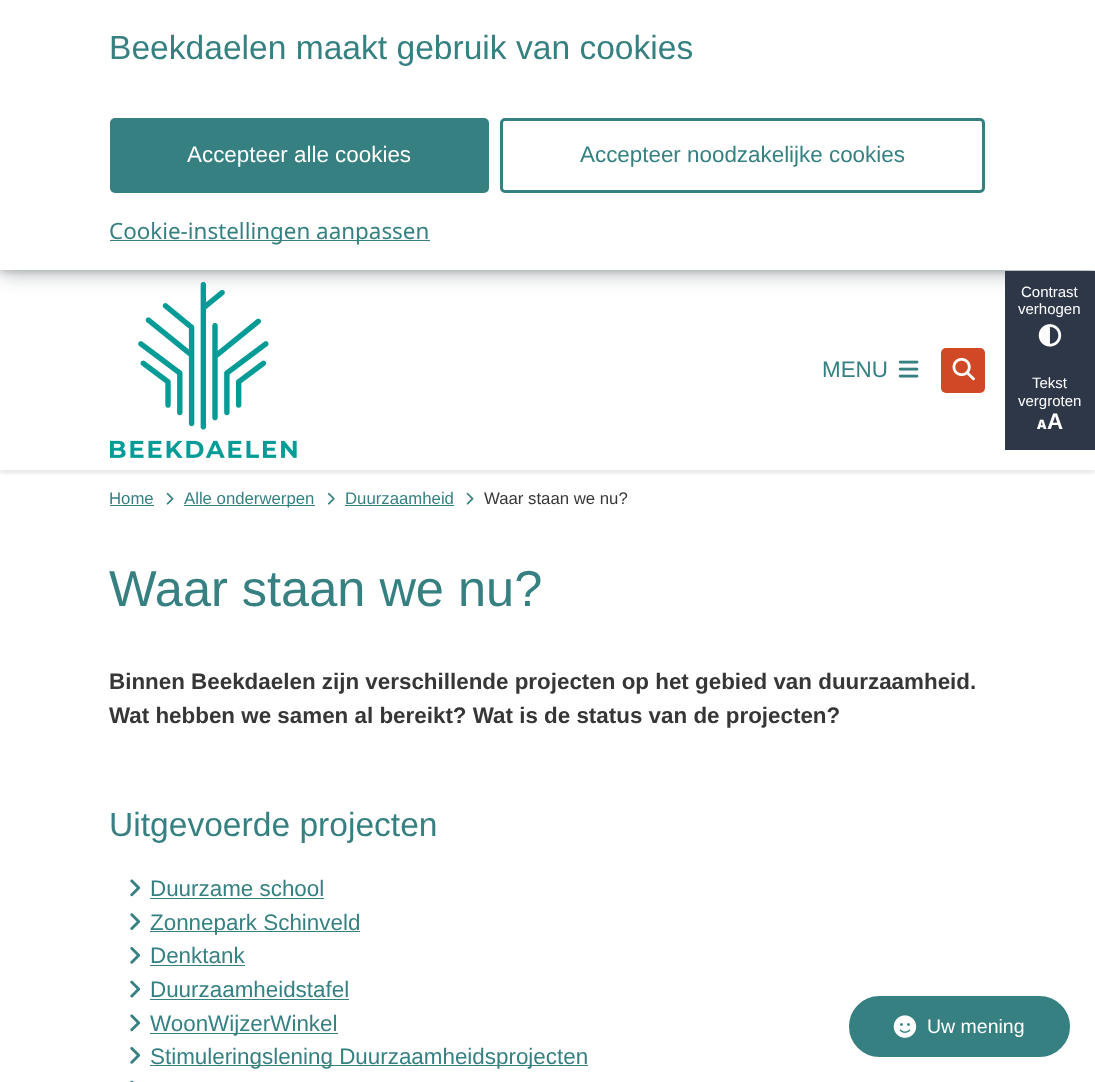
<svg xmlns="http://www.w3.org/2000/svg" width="1095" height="1082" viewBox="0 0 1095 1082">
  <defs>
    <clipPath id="clip1"><rect x="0" y="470" width="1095" height="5"/></clipPath>
  </defs>
  <rect width="100%" height="100%" fill="rgb(255,255,255)"/>
  <rect x="0" y="3" width="1095" height="270" fill="rgba(14,30,37,0.32)" filter="blur(10px)"/>
  <rect x="0" y="3" width="1095" height="270" fill="rgba(14,30,37,0.12)" filter="blur(2.5px)"/>
  <g clip-path="url(#clip1)">
    <rect x="0" y="273" width="1095" height="200" fill="rgba(0,0,0,0.1)" filter="blur(2.5px)"/>
  </g>
  <rect x="0" y="0" width="1095" height="270" fill="rgb(255,255,255)"/>
  <text x="109" y="59" font-family="Liberation Sans" font-size="33.6" fill="rgb(54,128,129)">Beekdaelen maakt gebruik van cookies</text>
  <rect x="110" y="118" width="379" height="75" rx="5" fill="rgb(54,128,129)"/>
  <text x="187" y="162" font-family="Liberation Sans" font-size="22.4" fill="rgb(255,255,255)">Accepteer alle cookies</text>
  <rect x="501.5" y="119.5" width="482" height="72" rx="3.5" fill="none" stroke="rgb(54,128,129)" stroke-width="3"/>
  <text x="580" y="162" font-family="Liberation Sans" font-size="22.4" fill="rgb(54,128,129)">Accepteer noodzakelijke cookies</text>
  <rect x="110" y="240" width="320" height="1" fill="rgb(54,128,129)"/>
  <text x="109" y="239" font-family="Noto Sans" font-size="22.4" fill="rgb(54,128,129)">Cookie-instellingen aanpassen</text>
  <image x="110" y="281" width="187" height="177" href="pic1.png"/>
  <text x="822" y="377" font-family="Liberation Sans" font-size="22.4" fill="rgb(54,128,129)">MENU</text>
  <image x="898" y="360" width="21" height="18" href="pic2.png"/>
  <rect x="941" y="348" width="44" height="45" rx="5" fill="rgb(209,72,38)"/>
  <image x="952" y="357" width="23" height="24" href="pic3.png"/>
  <text x="109" y="504" font-family="Liberation Sans" font-size="16.75" fill="rgb(54,128,129)">Home</text>
  <rect x="110" y="505" width="44" height="1" fill="rgb(54,128,129)"/>
  <image x="166" y="492" width="8" height="13" href="pic4.png"/>
  <rect x="184" y="505" width="131" height="1" fill="rgb(54,128,129)"/>
  <text x="184" y="504" font-family="Liberation Sans" font-size="16.75" fill="rgb(54,128,129)">Alle onderwerpen</text>
  <image x="328" y="492" width="7" height="13" href="pic5.png"/>
  <text x="345" y="504" font-family="Liberation Sans" font-size="16.75" fill="rgb(54,128,129)">Duurzaamheid</text>
  <rect x="345" y="505" width="109" height="1" fill="rgb(54,128,129)"/>
  <image x="466" y="492" width="8" height="13" href="pic4.png"/>
  <text x="484" y="504" font-family="Liberation Sans" font-size="16.75" fill="rgb(54,54,54)">Waar staan we nu?</text>
  <text x="109" y="606" font-family="Liberation Sans" font-size="50.5" fill="rgb(54,128,129)">Waar staan we nu?</text>
  <g font-family="Liberation Sans" font-size="22.4" font-weight="bold" fill="rgb(54,54,54)">
    <text>
      <tspan x="109" y="689">Binnen Beekdaelen zijn verschillende projecten op het gebied van duurzaamheid.</tspan>
      <tspan x="109" y="723">Wat hebben we samen al bereikt? Wat is de status van de projecten?</tspan>
    </text>
  </g>
  <text x="109" y="836" font-family="Liberation Sans" font-size="33.6" fill="rgb(54,128,129)">Uitgevoerde projecten</text>
  <image x="130" y="879" width="11" height="18" href="pic6.png"/>
  <text x="150" y="896" font-family="Liberation Sans" font-size="22.4" fill="rgb(54,128,129)">Duurzame school</text>
  <rect x="150" y="898" width="174" height="1" fill="rgb(54,128,129)"/>
  <image x="130" y="913" width="11" height="17" href="pic7.png"/>
  <rect x="150" y="931" width="210" height="1" fill="rgb(54,128,129)"/>
  <text x="150" y="930" font-family="Liberation Sans" font-size="22.4" fill="rgb(54,128,129)">Zonnepark Schinveld</text>
  <image x="130" y="947" width="11" height="17" href="pic8.png"/>
  <text x="150" y="963" font-family="Liberation Sans" font-size="22.4" fill="rgb(54,128,129)">Denktank</text>
  <rect x="150" y="965" width="95" height="1" fill="rgb(54,128,129)"/>
  <image x="130" y="980" width="11" height="18" href="pic9.png"/>
  <text x="150" y="997" font-family="Liberation Sans" font-size="22.4" fill="rgb(54,128,129)">Duurzaamheidstafel</text>
  <rect x="150" y="999" width="199" height="1" fill="rgb(54,128,129)"/>
  <image x="130" y="1014" width="11" height="18" href="pic6.png"/>
  <rect x="150" y="1033" width="188" height="1" fill="rgb(54,128,129)"/>
  <text x="150" y="1031" font-family="Liberation Sans" font-size="22.4" fill="rgb(54,128,129)">WoonWijzerWinkel</text>
  <image x="130" y="1047" width="11" height="17" href="pic8.png"/>
  <rect x="150" y="1065" width="438" height="1" fill="rgb(54,128,129)"/>
  <text x="150" y="1064" font-family="Liberation Sans" font-size="22.4" fill="rgb(54,128,129)">Stimuleringslening Duurzaamheidsprojecten</text>
  <image x="130" y="1080" width="4" height="2" href="pic10.png"/>
  <rect x="847.5" y="994.5" width="224" height="64" rx="32" fill="rgb(54,128,129)" stroke="rgb(255,255,255)" stroke-width="3"/>
  <image x="893" y="1015" width="24" height="23" href="pic11.png"/>
  <text x="927" y="1033" font-family="Liberation Sans" font-size="19.5" fill="rgb(255,255,255)">Uw mening</text>
  <rect x="1005" y="271" width="90" height="179" fill="rgb(45,55,72)"/>
  <g font-family="Liberation Sans" font-size="15" fill="rgb(255,255,255)">
    <text x="1021" y="297">Contrast</text>
    <text x="1018" y="314">verhogen</text>
  </g>
  <image x="1038" y="324" width="24" height="23" href="pic12.png"/>
  <g font-family="Liberation Sans" font-size="15" fill="rgb(255,255,255)">
    <text x="1032" y="388">Tekst</text>
    <text x="1018" y="406">vergroten</text>
  </g>
  <text x="1037" y="429" font-family="Noto Sans" font-size="13" font-weight="900" fill="rgb(255,255,255)">A</text>
  <text x="1047" y="429" font-family="Liberation Sans" font-size="22.4" font-weight="bold" fill="rgb(255,255,255)">A</text>
</svg>
